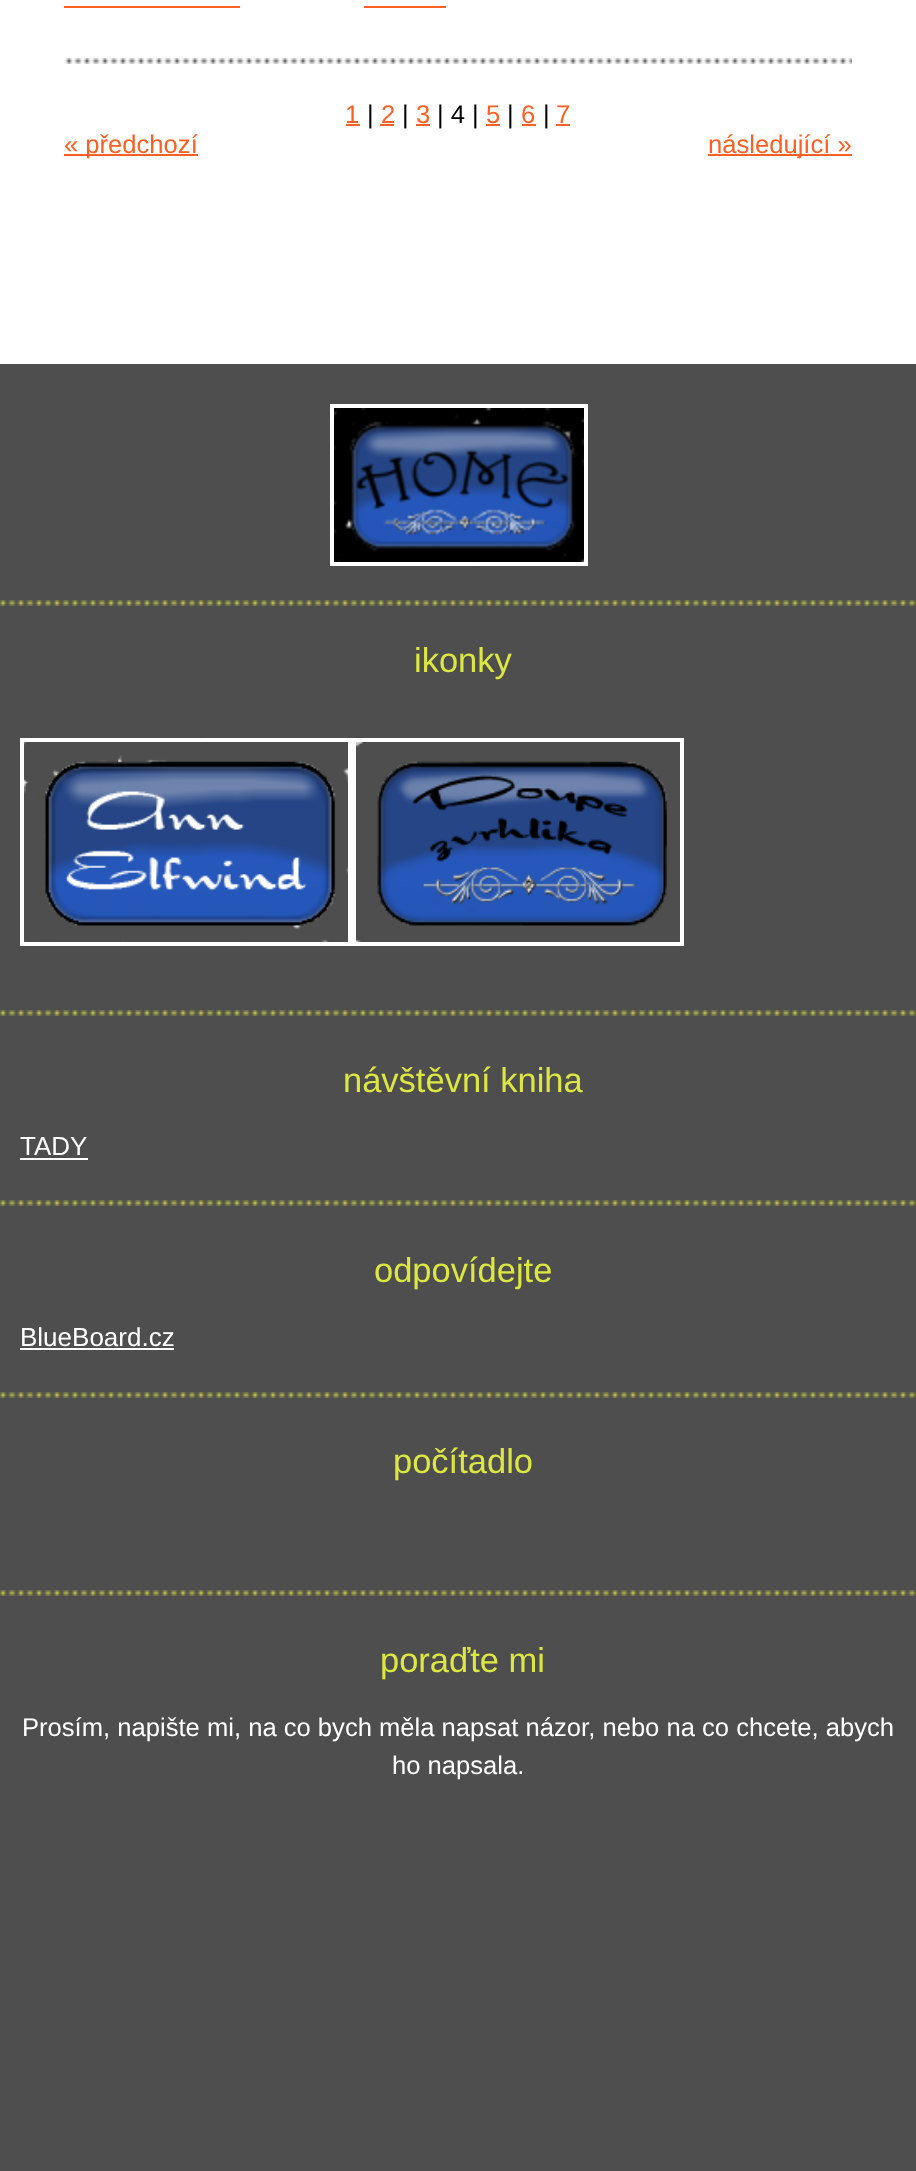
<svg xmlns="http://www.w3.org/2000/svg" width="916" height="2171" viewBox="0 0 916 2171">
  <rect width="100%" height="100%" fill="rgb(78,78,78)"/>
  <rect x="0" y="0" width="916" height="364" fill="rgb(255,255,255)"/>
  <image x="64" y="58" width="788" height="6" href="pic1.png"/>
  <rect x="64" y="6" width="176" height="2" fill="rgb(252,96,34)"/>
  <rect x="364" y="6" width="82" height="2" fill="rgb(252,96,34)"/>
  <text x="345" y="123" font-family="Liberation Sans" font-size="25.6" fill="rgb(252,96,34)">1</text>
  <rect x="346" y="124" width="14" height="2" fill="rgb(252,96,34)"/>
  <text x="367" y="123" font-family="Liberation Sans" font-size="25.6" fill="rgb(0,0,0)">|</text>
  <text x="381" y="123" font-family="Liberation Sans" font-size="25.6" fill="rgb(252,96,34)">2</text>
  <rect x="380" y="124" width="14" height="2" fill="rgb(252,96,34)"/>
  <text x="402" y="123" font-family="Liberation Sans" font-size="25.6" fill="rgb(0,0,0)">|</text>
  <text x="416" y="123" font-family="Liberation Sans" font-size="25.6" fill="rgb(252,96,34)">3</text>
  <rect x="416" y="124" width="14" height="2" fill="rgb(252,96,34)"/>
  <text x="437" y="123" font-family="Liberation Sans" font-size="25.6" fill="rgb(0,0,0)">| 4 |</text>
  <text x="486" y="123" font-family="Liberation Sans" font-size="25.6" fill="rgb(252,96,34)">5</text>
  <rect x="486" y="124" width="14" height="2" fill="rgb(252,96,34)"/>
  <text x="507" y="123" font-family="Liberation Sans" font-size="25.6" fill="rgb(0,0,0)">|</text>
  <text x="521" y="123" font-family="Liberation Sans" font-size="25.6" fill="rgb(252,96,34)">6</text>
  <rect x="522" y="124" width="14" height="2" fill="rgb(252,96,34)"/>
  <text x="543" y="123" font-family="Liberation Sans" font-size="25.6" fill="rgb(0,0,0)">|</text>
  <text x="556" y="123" font-family="Liberation Sans" font-size="25.6" fill="rgb(252,96,34)">7</text>
  <rect x="556" y="124" width="14" height="2" fill="rgb(252,96,34)"/>
  <rect x="64" y="154" width="134" height="2" fill="rgb(252,96,34)"/>
  <text x="64" y="153" font-family="Liberation Sans" font-size="25.6" fill="rgb(252,96,34)">« předchozí</text>
  <rect x="708" y="154" width="144" height="2" fill="rgb(252,96,34)"/>
  <text x="708" y="153" font-family="Liberation Sans" font-size="25.6" fill="rgb(252,96,34)">následující »</text>
  <image x="0" y="600" width="916" height="6" href="pic2.png"/>
  <rect x="332" y="406" width="254" height="158" fill="none" stroke="rgb(255,255,255)" stroke-width="4"/>
  <image x="334" y="408" width="250" height="154" href="pic3.png"/>
  <image x="0" y="1010" width="916" height="6" href="pic2.png"/>
  <text x="414" y="672" font-family="Liberation Sans" font-size="34.5" fill="rgb(221,231,66)">ikonky</text>
  <rect x="22" y="740" width="328" height="204" fill="none" stroke="rgb(255,255,255)" stroke-width="4"/>
  <image x="24" y="742" width="324" height="200" href="pic4.png"/>
  <rect x="354" y="740" width="328" height="204" fill="none" stroke="rgb(255,255,255)" stroke-width="4"/>
  <image x="356" y="742" width="312" height="200" href="pic5.png"/>
  <image x="0" y="1200" width="916" height="6" href="pic2.png"/>
  <text x="343" y="1092" font-family="Liberation Sans" font-size="34.5" fill="rgb(221,231,66)">návštěvní kniha</text>
  <text x="20" y="1155" font-family="Liberation Sans" font-size="26" fill="rgb(255,255,255)">TADY</text>
  <rect x="20" y="1158" width="68" height="2" fill="rgb(255,255,255)"/>
  <image x="0" y="1392" width="916" height="6" href="pic2.png"/>
  <text x="374" y="1282" font-family="Liberation Sans" font-size="34.5" fill="rgb(221,231,66)">odpovídejte</text>
  <text x="20" y="1346" font-family="Liberation Sans" font-size="26" fill="rgb(255,255,255)">BlueBoard.cz</text>
  <rect x="20" y="1348" width="154" height="2" fill="rgb(255,255,255)"/>
  <image x="0" y="1590" width="916" height="6" href="pic2.png"/>
  <g font-family="Liberation Sans" font-size="34.5" fill="rgb(221,231,66)">
    <text x="393" y="1473">počítadlo</text>
    <text x="380" y="1672">poraďte mi</text>
  </g>
  <g font-family="Liberation Sans" font-size="25.6" fill="rgb(255,255,255)">
    <text x="22" y="1736">Prosím, napište mi, na co bych měla napsat názor, nebo na co chcete, abych</text>
    <text x="392" y="1774">ho napsala.</text>
  </g>
</svg>
